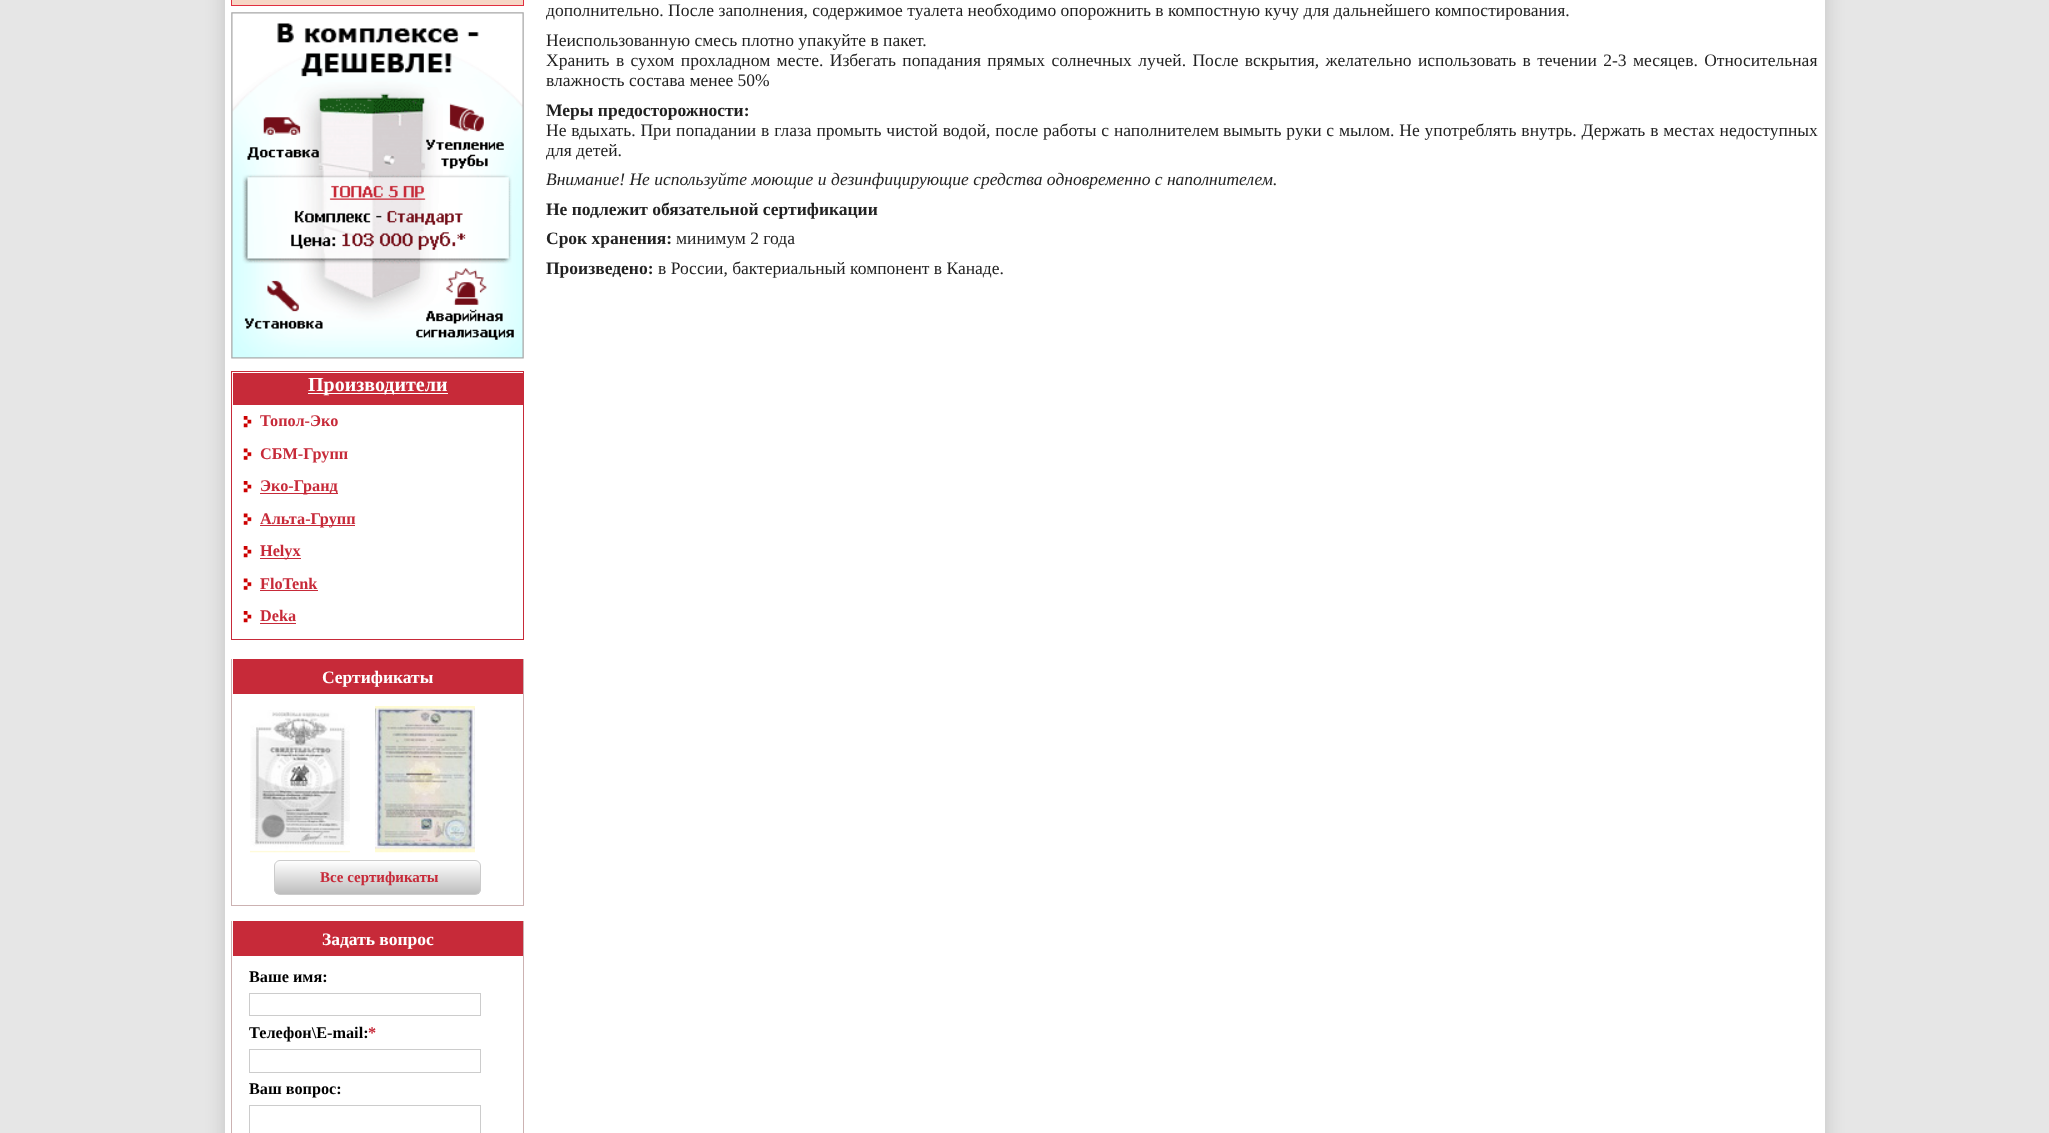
<svg xmlns="http://www.w3.org/2000/svg" width="2049" height="1133" viewBox="0 0 2049 1133">
  <defs>
    <clipPath id="clip1"><rect x="274" y="860" width="207" height="35" rx="6"/></clipPath>
    <linearGradient id="g1" gradientUnits="userSpaceOnUse" x1="275" y1="861" x2="275" y2="894"><stop offset="0" stop-color="rgb(255,255,255)"/><stop offset="1" stop-color="rgb(189,189,189)"/></linearGradient>
  </defs>
  <rect width="100%" height="100%" fill="rgb(230,230,230)"/>
  <rect x="225" y="-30" width="1600" height="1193" fill="rgba(0,0,0,0.15)" filter="blur(10px)"/>
  <rect x="225" y="0" width="1600" height="1133" fill="rgb(255,255,255)"/>
  <g font-family="Liberation Serif" font-size="17.5" fill="rgb(34,34,34)">
    <text>
      <tspan x="546" y="16">дополнительно. После заполнения, содержимое туалета необходимо опорожнить в компостную кучу для дальнейшего компостирования.</tspan>
      <tspan x="546" y="46">Неиспользованную смесь плотно упакуйте в пакет.</tspan>
      <tspan x="546" y="66" word-spacing="2">Хранить в сухом прохладном месте. Избегать попадания прямых солнечных лучей. После вскрытия, желательно использовать в течении 2-3 месяцев. Относительная</tspan>
      <tspan x="546" y="86">влажность состава менее 50%</tspan>
    </text>
  </g>
  <text x="546" y="116" font-family="Liberation Serif" font-size="17.5" font-weight="bold" fill="rgb(34,34,34)">Меры предосторожности:</text>
  <g font-family="Liberation Serif" font-size="17.5" fill="rgb(34,34,34)">
    <text x="546" y="136" word-spacing="0.5">Не вдыхать. При попадании в глаза промыть чистой водой, после работы с наполнителем</text>
    <text x="1223" y="136" word-spacing="0.5">вымыть руки с мылом. Не употреблять внутрь. Держать в местах недоступных</text>
    <text x="546" y="156">для детей.</text>
  </g>
  <text x="546" y="185" font-family="Liberation Serif" font-size="17.5" font-style="italic" fill="rgb(34,34,34)">Внимание! Не используйте моющие и дезинфицирующие средства одновременно с наполнителем.</text>
  <g font-family="Liberation Serif" font-size="17.5" font-weight="bold" fill="rgb(34,34,34)">
    <text>
      <tspan x="546" y="215">Не подлежит обязательной сертификации</tspan>
      <tspan x="546" y="244">Срок хранения:</tspan>
    </text>
  </g>
  <text x="676" y="244" font-family="Liberation Serif" font-size="17.5" fill="rgb(34,34,34)">минимум 2 года</text>
  <text x="546" y="274" font-family="Liberation Serif" font-size="17.5" font-weight="bold" fill="rgb(34,34,34)">Произведено:</text>
  <text x="658" y="274" font-family="Liberation Serif" font-size="17.5" fill="rgb(34,34,34)">в России, бактериальный компонент в Канаде.</text>
  <rect x="231.5" y="-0.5" width="292" height="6" fill="rgb(247,214,197)" stroke="rgb(225,47,64)"/>
  <image x="231" y="12" width="293" height="347" href="pic1.png"/>
  <rect x="231.5" y="371.5" width="292" height="268" fill="none" stroke="rgb(199,42,57)"/>
  <rect x="233" y="373" width="290" height="32" fill="rgb(199,42,57)"/>
  <rect x="308" y="393" width="140" height="1" fill="rgb(255,255,255)"/>
  <text x="308" y="391" font-family="Liberation Serif" font-size="20" font-weight="bold" fill="rgb(255,255,255)">Производители</text>
  <image x="243" y="416" width="9" height="12" href="pic2.png"/>
  <text x="260" y="426" font-family="Liberation Serif" font-size="16.25" font-weight="bold" fill="rgb(199,42,57)">Топол-Эко</text>
  <image x="243" y="448" width="9" height="12" href="pic3.png"/>
  <text x="260" y="459" font-family="Liberation Serif" font-size="16.25" font-weight="bold" fill="rgb(199,42,57)">СБМ-Групп</text>
  <image x="243" y="481" width="9" height="12" href="pic2.png"/>
  <rect x="260" y="493" width="78" height="1" fill="rgb(199,42,57)"/>
  <text x="260" y="491" font-family="Liberation Serif" font-size="16.25" font-weight="bold" fill="rgb(199,42,57)">Эко-Гранд</text>
  <image x="243" y="513" width="9" height="12" href="pic3.png"/>
  <rect x="260" y="525" width="95" height="1" fill="rgb(199,42,57)"/>
  <text x="260" y="524" font-family="Liberation Serif" font-size="16.25" font-weight="bold" fill="rgb(199,42,57)">Альта-Групп</text>
  <image x="243" y="546" width="9" height="12" href="pic2.png"/>
  <rect x="260" y="558" width="41" height="1" fill="rgb(199,42,57)"/>
  <text x="260" y="556" font-family="Liberation Serif" font-size="16.25" font-weight="bold" fill="rgb(199,42,57)">Helyx</text>
  <image x="243" y="578" width="9" height="12" href="pic3.png"/>
  <text x="260" y="589" font-family="Liberation Serif" font-size="16.25" font-weight="bold" fill="rgb(199,42,57)">FloTenk</text>
  <rect x="260" y="590" width="58" height="1" fill="rgb(199,42,57)"/>
  <image x="243" y="611" width="9" height="12" href="pic2.png"/>
  <text x="260" y="621" font-family="Liberation Serif" font-size="16.25" font-weight="bold" fill="rgb(199,42,57)">Deka</text>
  <rect x="260" y="623" width="36" height="1" fill="rgb(199,42,57)"/>
  <rect x="523" y="659" width="1" height="247" fill="rgb(204,178,178)"/>
  <rect x="231" y="905" width="293" height="1" fill="rgb(204,178,178)"/>
  <rect x="231" y="659" width="1" height="247" fill="rgb(204,178,178)"/>
  <rect x="233" y="659" width="290" height="35" fill="rgb(199,42,57)"/>
  <text x="322" y="683" font-family="Liberation Serif" font-size="17.5" font-weight="bold" fill="rgb(255,255,255)">Сертификаты</text>
  <image x="250" y="710" width="100" height="143" href="pic4.png"/>
  <image x="375" y="706" width="100" height="147" href="pic5.png"/>
  <g clip-path="url(#clip1)">
    <rect x="274" y="861" width="207" height="33" fill="url(#g1)"/>
  </g>
  <rect x="274.5" y="860.5" width="206" height="34" rx="5.5" fill="none" stroke="rgb(204,204,204)"/>
  <text x="320" y="882" font-family="Liberation Serif" font-size="15" font-weight="bold" fill="rgb(199,42,57)">Все сертификаты</text>
  <rect x="523" y="921" width="1" height="212" fill="rgb(204,178,178)"/>
  <rect x="231" y="921" width="1" height="212" fill="rgb(204,178,178)"/>
  <rect x="233" y="921" width="290" height="35" fill="rgb(199,42,57)"/>
  <text x="322" y="945" font-family="Liberation Serif" font-size="17.5" font-weight="bold" fill="rgb(255,255,255)">Задать вопрос</text>
  <text x="249" y="982" font-family="Liberation Serif" font-size="16.25" font-weight="bold" fill="rgb(0,0,0)">Ваше имя:</text>
  <rect x="249.5" y="993.5" width="231" height="22" fill="none" stroke="rgb(204,204,204)"/>
  <text x="249" y="1038" font-family="Liberation Serif" font-size="16.25" font-weight="bold" fill="rgb(0,0,0)">Телефон\E-mail:</text>
  <text x="368" y="1038" font-family="Liberation Serif" font-size="16.25" font-weight="bold" fill="rgb(199,42,57)">*</text>
  <rect x="249.5" y="1049.5" width="231" height="23" fill="none" stroke="rgb(204,204,204)"/>
  <text x="249" y="1094" font-family="Liberation Serif" font-size="16.25" font-weight="bold" fill="rgb(0,0,0)">Ваш вопрос:</text>
  <rect x="249.5" y="1105.5" width="231" height="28" fill="none" stroke="rgb(204,204,204)"/>
</svg>
